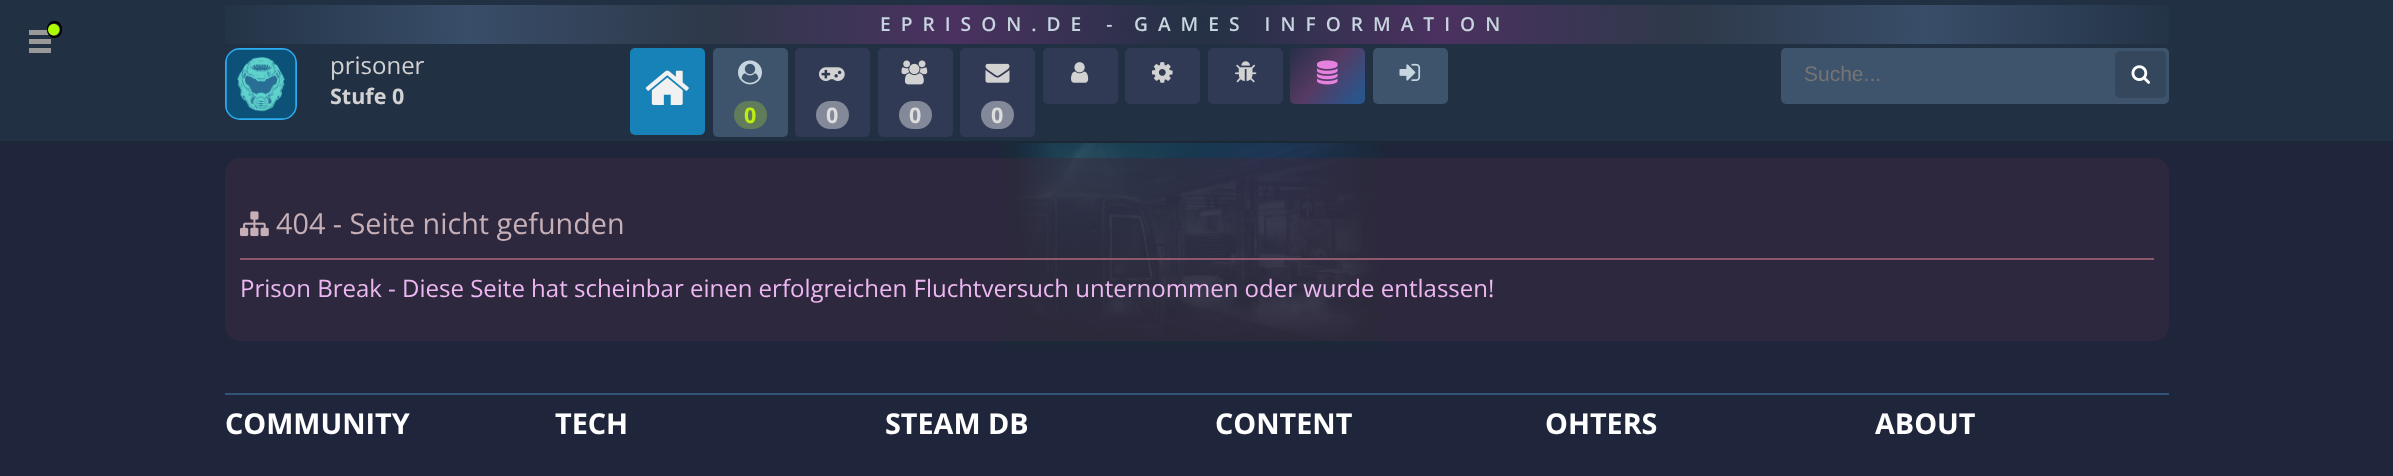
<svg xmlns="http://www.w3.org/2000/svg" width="2393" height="476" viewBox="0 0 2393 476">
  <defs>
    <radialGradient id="g1" gradientUnits="userSpaceOnUse" cx="0" cy="0" r="1" gradientTransform="matrix(972 0 0 778 1197 24)"><stop offset="0" stop-color="rgb(35,49,68)"/><stop offset="0.25" stop-color="rgb(75,49,96)"/><stop offset="0.5" stop-color="rgb(46,57,74)"/><stop offset="0.75" stop-color="rgb(56,77,104)"/><stop offset="1" stop-color="rgb(36,52,71)"/></radialGradient>
    <linearGradient id="g2" gradientUnits="userSpaceOnUse" x1="1292" y1="46" x2="1363" y2="106"><stop offset="0" stop-color="rgb(38,47,73)"/><stop offset="0.45" stop-color="rgb(86,58,98)"/><stop offset="0.9" stop-color="rgb(43,85,138)"/></linearGradient>
  </defs>
  <rect width="100%" height="100%" fill="rgb(31,38,60)"/>
  <rect x="0" y="0" width="2393" height="141" fill="rgba(36,52,71,0.7)"/>
  <rect x="29" y="30" width="22" height="5" fill="rgb(153,153,153)"/>
  <rect x="29" y="39" width="22" height="5" fill="rgb(153,153,153)"/>
  <rect x="29" y="48" width="22" height="5" fill="rgb(153,153,153)"/>
  <rect x="48" y="22" width="13" height="15" rx="6.5" fill="none" stroke="rgb(0,0,0)" stroke-width="2"/>
  <image x="48" y="23" width="12" height="13" href="pic1.png"/>
  <rect x="0" y="141" width="2393" height="2" fill="rgb(27,40,54)"/>
  <rect x="225" y="5" width="1944" height="39" fill="url(#g1)"/>
  <text x="880" y="31" font-family="Open Sans" font-size="19.2" font-weight="600" letter-spacing="10" fill="rgb(199,213,224)">EPRISON.DE -</text>
  <text x="1134" y="31" font-family="Open Sans" font-size="19.2" font-weight="600" letter-spacing="10" fill="rgb(199,213,224)">GAMES INFORMATION</text>
  <rect x="226" y="49" width="70" height="70" rx="14" fill="none" stroke="rgb(43,172,240)" stroke-width="2"/>
  <image x="226" y="49" width="70" height="70" href="pic2.png"/>
  <text x="330" y="74" font-family="Open Sans" font-size="24" fill="rgb(210,210,210)">prisoner</text>
  <text x="330" y="104" font-family="Open Sans" font-size="21.5" font-weight="bold" fill="rgb(210,210,210)">Stufe 0</text>
  <rect x="630" y="48" width="75" height="87" rx="5" fill="rgb(22,130,183)"/>
  <image x="645" y="70" width="44" height="35" href="pic3.png"/>
  <rect x="1043" y="48" width="75" height="56" rx="5" fill="rgb(49,58,85)"/>
  <image x="1071" y="62" width="18" height="21" href="pic4.png"/>
  <rect x="1125" y="48" width="75" height="56" rx="5" fill="rgb(49,58,85)"/>
  <image x="1152" y="62" width="21" height="21" href="pic5.png"/>
  <rect x="1208" y="48" width="75" height="56" rx="5" fill="rgb(49,58,85)"/>
  <image x="1235" y="61" width="22" height="22" href="pic6.png"/>
  <rect x="1290" y="48" width="75" height="56" rx="5" fill="url(#g2)"/>
  <image x="1317" y="60" width="21" height="25" href="pic7.png"/>
  <rect x="1373" y="48" width="75" height="56" rx="5" fill="rgb(62,83,108)"/>
  <image x="1399" y="63" width="22" height="18" href="pic8.png"/>
  <rect x="1781" y="48" width="388" height="56" rx="5" fill="rgb(62,83,108)"/>
  <text x="1804" y="81" font-family="Liberation Sans" font-size="21" fill="rgb(117,117,117)">Suche...</text>
  <rect x="2116" y="52" width="49" height="45" rx="4" fill="rgb(53,71,92)" stroke="rgb(53,71,92)" stroke-width="2"/>
  <image x="2131" y="65" width="20" height="19" href="pic9.png"/>
  <rect x="713" y="48" width="75" height="89" rx="5" fill="rgb(62,83,108)"/>
  <image x="738" y="60" width="24" height="25" href="pic10.png"/>
  <rect x="734" y="101" width="33" height="28" rx="14" fill="rgb(97,124,91)"/>
  <text x="744" y="123" font-family="Open Sans" font-size="21.5" font-weight="bold" fill="rgb(190,238,17)">0</text>
  <rect x="795" y="48" width="75" height="89" rx="5" fill="rgb(49,58,85)"/>
  <image x="819" y="67" width="26" height="14" href="pic11.png"/>
  <rect x="816" y="101" width="33" height="28" rx="14" fill="rgb(131,137,153)"/>
  <text x="826" y="123" font-family="Open Sans" font-size="21.5" font-weight="bold" fill="rgb(221,221,221)">0</text>
  <rect x="878" y="48" width="75" height="89" rx="5" fill="rgb(49,58,85)"/>
  <image x="901" y="60" width="27" height="25" href="pic12.png"/>
  <rect x="899" y="101" width="33" height="28" rx="14" fill="rgb(131,137,153)"/>
  <text x="909" y="123" font-family="Open Sans" font-size="21.5" font-weight="bold" fill="rgb(221,221,221)">0</text>
  <rect x="960" y="48" width="75" height="89" rx="5" fill="rgb(49,58,85)"/>
  <image x="985" y="63" width="25" height="20" href="pic13.png"/>
  <rect x="981" y="101" width="33" height="28" rx="14" fill="rgb(131,137,153)"/>
  <text x="991" y="123" font-family="Open Sans" font-size="21.5" font-weight="bold" fill="rgb(221,221,221)">0</text>
  <image x="1004" y="143" width="375" height="202" href="pic14.png"/>
  <rect x="225" y="158" width="1944" height="183" rx="15" fill="rgba(60,41,62,0.5)"/>
  <rect x="240" y="258" width="1914" height="2" fill="rgb(142,87,107)"/>
  <image x="240" y="211" width="29" height="26" href="pic15.png"/>
  <text x="276" y="234" font-family="Open Sans" font-size="28.75" fill="rgb(198,175,183)">404 - Seite nicht gefunden</text>
  <text x="240" y="297" font-family="Open Sans" font-size="24" fill="rgb(237,183,242)">Prison Break - Diese Seite hat scheinbar einen erfolgreichen Fluchtversuch unternommen oder wurde entlassen!</text>
  <rect x="225" y="393" width="1944" height="2" fill="rgb(50,84,121)"/>
  <g font-family="Open Sans" font-size="28.75" font-weight="bold" fill="rgb(255,255,255)">
    <text x="225" y="434">COMMUNITY</text>
    <text x="555" y="434">TECH</text>
    <text x="885" y="434">STEAM DB</text>
    <text x="1215" y="434">CONTENT</text>
    <text x="1545" y="434">OHTERS</text>
    <text x="1875" y="434">ABOUT</text>
  </g>
</svg>
